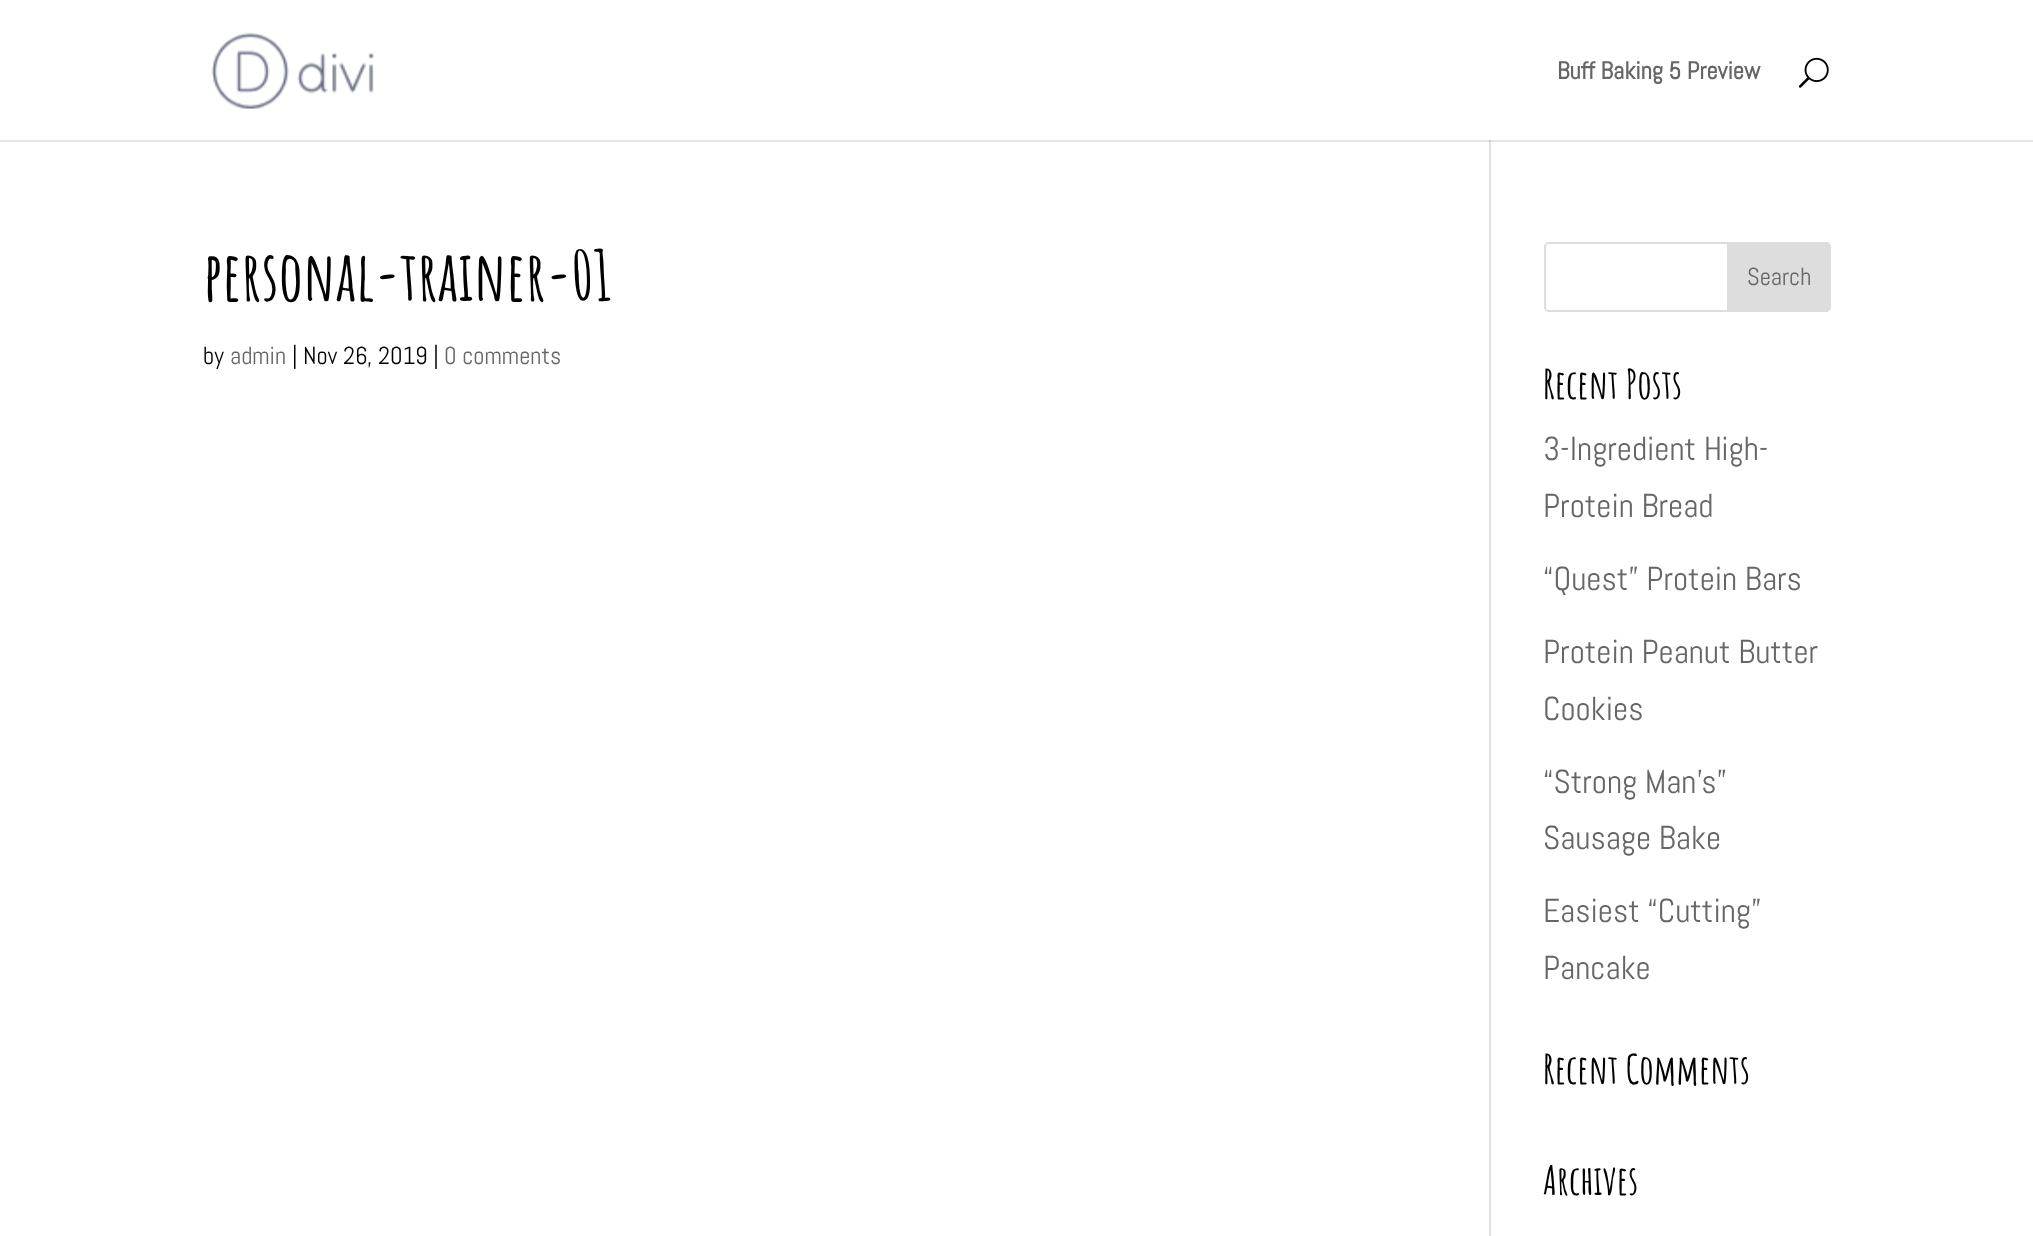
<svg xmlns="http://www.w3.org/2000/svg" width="2033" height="1236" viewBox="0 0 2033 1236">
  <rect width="100%" height="100%" fill="rgb(255,255,255)"/>
  <rect x="1489" y="140" width="2" height="1096" fill="rgb(226,226,226)"/>
  <path d="M0 140V142H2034V2V140Z" fill="rgba(0,0,0,0.1)"/>
  <image x="211" y="32" width="164" height="77" href="pic1.png"/>
  <text x="1557" y="79" font-family="Abel" font-size="24.5" font-weight="bold" fill="rgb(102,102,102)">Buff Baking 5 Preview</text>
  <image x="1798" y="57" width="31" height="31" href="pic2.png"/>
  <text x="203" y="301" font-family="Amatic SC" font-size="68.25" font-weight="bold" fill="rgb(0,0,0)">personal-trainer-01</text>
  <text x="203" y="364" font-family="Abel" font-size="24.5" fill="rgb(0,0,0)">by</text>
  <text x="230" y="364" font-family="Abel" font-size="24.5" fill="rgb(102,102,102)">admin</text>
  <text x="292" y="364" font-family="Abel" font-size="24.5" fill="rgb(0,0,0)">| Nov 26, 2019 |</text>
  <text x="444" y="364" font-family="Abel" font-size="24.5" fill="rgb(102,102,102)">0 comments</text>
  <rect x="1545" y="243" width="285" height="68" rx="4" fill="none" stroke="rgb(221,221,221)" stroke-width="2"/>
  <path d="M1728 243H1826C1828 243 1830 245 1830 247V307C1830 309 1828 311 1826 311H1728Z" fill="rgb(221,221,221)" stroke="rgb(221,221,221)" stroke-width="2"/>
  <text x="1747" y="285" font-family="Abel" font-size="24.5" fill="rgb(102,102,102)">Search</text>
  <text x="1543" y="399" font-family="Amatic SC" font-size="40.25" font-weight="bold" fill="rgb(0,0,0)">Recent Posts</text>
  <g font-family="Abel" font-size="33.25" fill="rgb(102,102,102)">
    <text>
      <tspan x="1543" y="460">3-Ingredient High-</tspan>
      <tspan x="1543" y="517">Protein Bread</tspan>
    </text>
    <text x="1543" y="590">“Quest” Protein Bars</text>
    <text>
      <tspan x="1543" y="663">Protein Peanut Butter</tspan>
      <tspan x="1543" y="720">Cookies</tspan>
    </text>
    <text>
      <tspan x="1543" y="793">“Strong Man’s”</tspan>
      <tspan x="1543" y="849">Sausage Bake</tspan>
    </text>
    <text>
      <tspan x="1543" y="922">Easiest “Cutting”</tspan>
      <tspan x="1543" y="979">Pancake</tspan>
    </text>
  </g>
  <g font-family="Amatic SC" font-size="40.25" font-weight="bold" fill="rgb(0,0,0)">
    <text x="1543" y="1084">Recent Comments</text>
    <text x="1543" y="1195">Archives</text>
  </g>
</svg>
